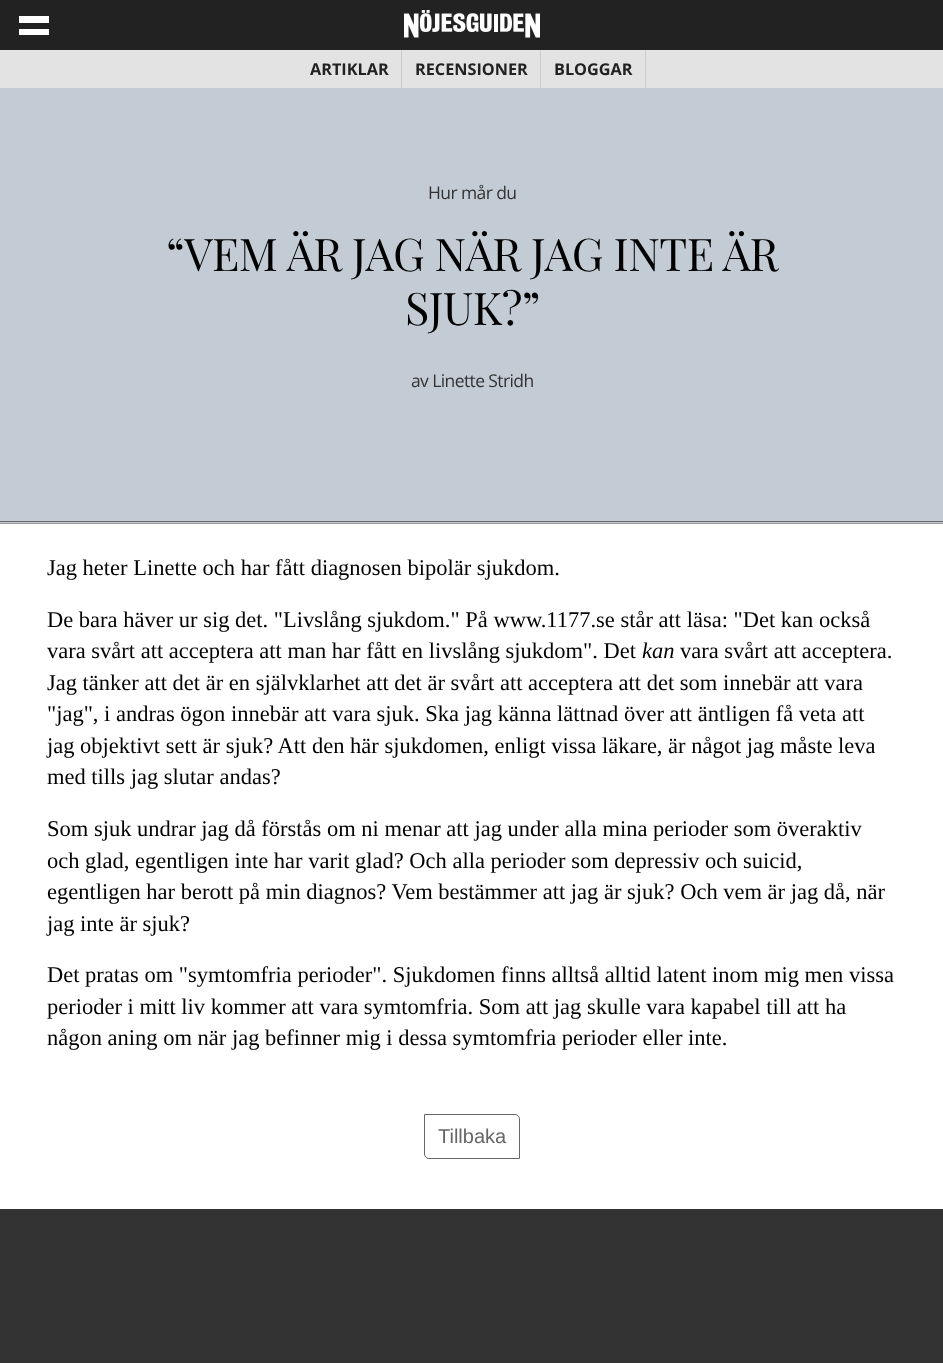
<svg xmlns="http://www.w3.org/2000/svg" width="943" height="1363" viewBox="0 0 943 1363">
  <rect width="100%" height="100%" fill="rgb(195,204,212)"/>
  <rect x="0" y="0" width="943" height="50" fill="rgb(34,34,34)"/>
  <rect x="19" y="16" width="30" height="7" fill="rgb(255,255,255)"/>
  <rect x="19" y="29" width="30" height="6" fill="rgb(255,255,255)"/>
  <image x="404" y="10" width="136" height="28" href="pic1.png"/>
  <rect x="0" y="50" width="943" height="38" fill="rgb(227,227,227)"/>
  <rect x="401" y="50" width="1" height="38" fill="rgb(204,204,204)"/>
  <text x="310" y="75" font-family="Open Sans" font-size="16.25" font-weight="bold" fill="rgb(34,34,34)">ARTIKLAR</text>
  <rect x="540" y="50" width="1" height="38" fill="rgb(204,204,204)"/>
  <text x="415" y="75" font-family="Open Sans" font-size="16.25" font-weight="bold" fill="rgb(34,34,34)">RECENSIONER</text>
  <rect x="645" y="50" width="1" height="38" fill="rgb(204,204,204)"/>
  <text x="554" y="75" font-family="Open Sans" font-size="16.25" font-weight="bold" fill="rgb(34,34,34)">BLOGGAR</text>
  <text x="428" y="199" font-family="Open Sans" font-size="17.5" letter-spacing="-0.6" fill="rgb(51,51,51)">Hur mår du</text>
  <g font-family="Playfair Display" font-size="45" letter-spacing="-0.6" fill="rgb(0,0,0)">
    <text x="166" y="271">“VEM ÄR JAG NÄR JAG INTE ÄR</text>
    <text x="405" y="325">SJUK?”</text>
  </g>
  <text x="411" y="387" font-family="Open Sans" font-size="17.5" letter-spacing="-0.6" fill="rgb(51,51,51)">av Linette Stridh</text>
  <rect x="0" y="521" width="943" height="1" fill="rgb(102,102,102)"/>
  <rect x="0" y="524" width="943" height="685" fill="rgb(255,255,255)"/>
  <rect x="0" y="523" width="943" height="1" fill="rgb(153,153,153)"/>
  <g font-family="Liberation Serif" font-size="22.5" fill="rgb(0,0,0)">
    <text x="47" y="575">Jag heter Linette och har fått diagnosen bipolär sjukdom.</text>
    <text>
      <tspan x="47" y="627">De bara häver ur sig det. "Livslång sjukdom." På www.1177.se står att läsa: "Det kan också</tspan>
      <tspan x="47" y="658">vara svårt att acceptera att man har fått en livslång sjukdom". Det</tspan>
    </text>
  </g>
  <text x="642" y="658" font-family="Liberation Serif" font-size="22.5" font-style="italic" fill="rgb(0,0,0)">kan</text>
  <g font-family="Liberation Serif" font-size="22.5" fill="rgb(0,0,0)">
    <text x="680" y="658">vara svårt att acceptera.</text>
    <text>
      <tspan x="47" y="690">Jag tänker att det är en självklarhet att det är svårt att acceptera att det som innebär att vara</tspan>
      <tspan x="47" y="721">"jag", i andras ögon innebär att vara sjuk. Ska jag känna lättnad över att äntligen få veta att</tspan>
      <tspan x="47" y="753">jag objektivt sett är sjuk? Att den här sjukdomen, enligt vissa läkare, är något jag måste leva</tspan>
      <tspan x="47" y="784">med tills jag slutar andas?</tspan>
    </text>
    <text>
      <tspan x="47" y="836">Som sjuk undrar jag då förstås om ni menar att jag under alla mina perioder som överaktiv</tspan>
      <tspan x="47" y="868">och glad, egentligen inte har varit glad? Och alla perioder som depressiv och suicid,</tspan>
      <tspan x="47" y="899">egentligen har berott på min diagnos? Vem bestämmer att jag är sjuk? Och vem är jag då, när</tspan>
      <tspan x="47" y="931">jag inte är sjuk?</tspan>
    </text>
    <text>
      <tspan x="47" y="982">Det pratas om "symtomfria perioder". Sjukdomen finns alltså alltid latent inom mig men vissa</tspan>
      <tspan x="47" y="1014">perioder i mitt liv kommer att vara symtomfria. Som att jag skulle vara kapabel till att ha</tspan>
      <tspan x="47" y="1045">någon aning om när jag befinner mig i dessa symtomfria perioder eller inte.</tspan>
    </text>
  </g>
  <path d="M424.5 1114.5H515C517.5 1114.5 519.5 1116.5 519.5 1119V1158.5H429C426.5 1158.5 424.5 1156.5 424.5 1154Z" fill="none" stroke="rgb(102,102,102)"/>
  <text x="438" y="1143" font-family="Liberation Sans" font-size="20" fill="rgb(102,102,102)">Tillbaka</text>
  <rect x="0" y="1209" width="943" height="154" fill="rgb(51,51,51)"/>
</svg>
